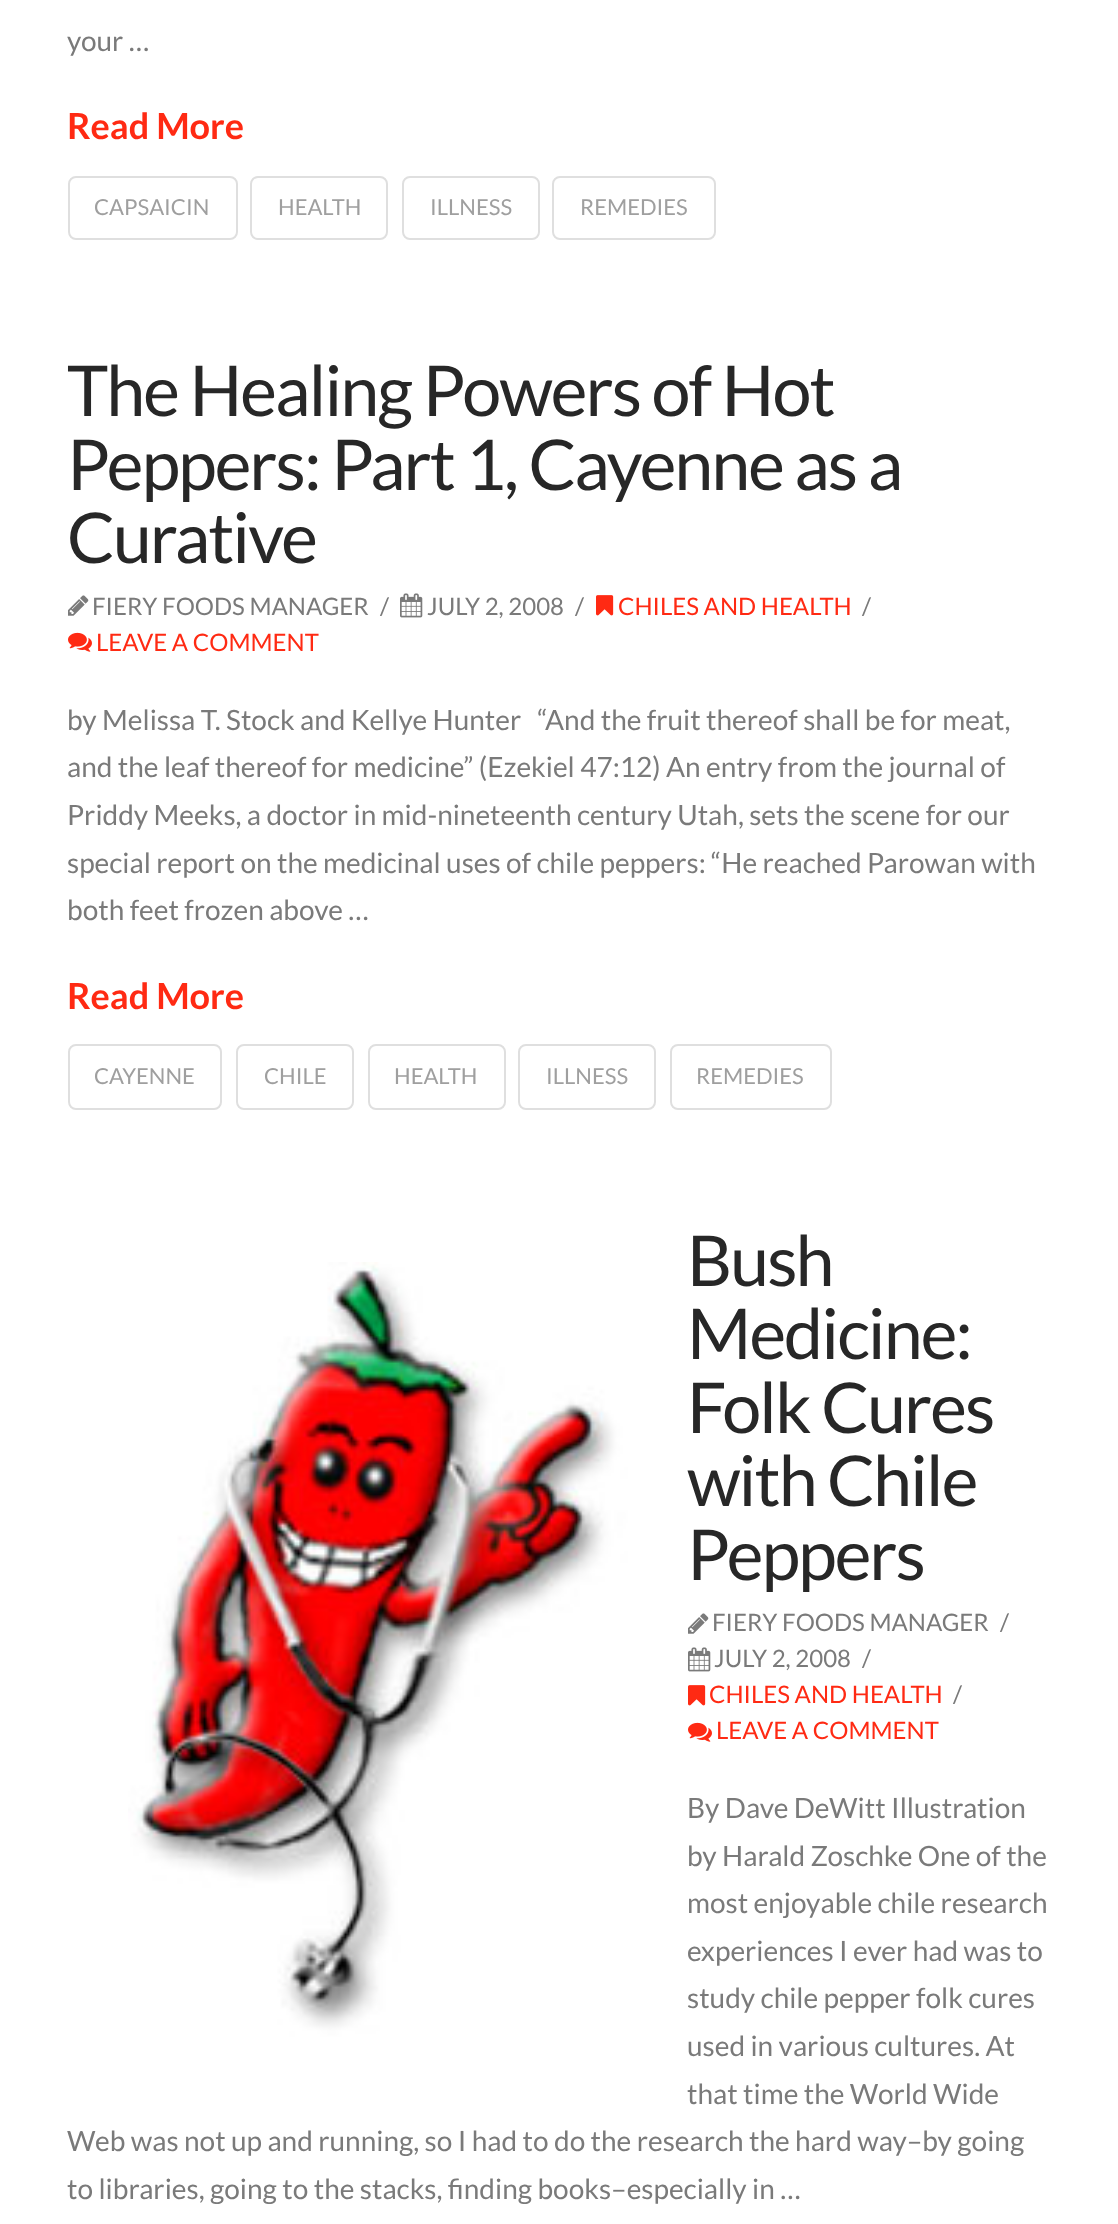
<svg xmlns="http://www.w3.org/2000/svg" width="1118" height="2224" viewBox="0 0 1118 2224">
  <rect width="100%" height="100%" fill="rgb(255,255,255)"/>
  <text x="67" y="51" font-family="Lato" font-size="28" fill="rgb(122,122,122)">your …</text>
  <text x="67" y="139" font-family="Lato" font-size="36" font-weight="bold" fill="rgb(255,42,19)">Read More</text>
  <rect x="69" y="177" width="168" height="62" rx="7" fill="none" stroke="rgb(223,223,223)" stroke-width="2"/>
  <text x="94" y="215" font-family="Lato" font-size="22" fill="rgb(159,159,159)">CAPSAICIN</text>
  <rect x="251" y="177" width="136" height="62" rx="7" fill="none" stroke="rgb(223,223,223)" stroke-width="2"/>
  <text x="278" y="215" font-family="Lato" font-size="22" fill="rgb(159,159,159)">HEALTH</text>
  <rect x="403" y="177" width="136" height="62" rx="7" fill="none" stroke="rgb(223,223,223)" stroke-width="2"/>
  <text x="430" y="215" font-family="Lato" font-size="22" fill="rgb(159,159,159)">ILLNESS</text>
  <rect x="553" y="177" width="162" height="62" rx="7" fill="none" stroke="rgb(223,223,223)" stroke-width="2"/>
  <text x="580" y="215" font-family="Lato" font-size="22" fill="rgb(159,159,159)">REMEDIES</text>
  <g font-family="Lato" font-size="70" letter-spacing="-2" fill="rgb(39,39,39)">
    <text>
      <tspan x="67" y="416">The Healing Powers of Hot</tspan>
      <tspan x="67" y="490">Peppers: Part 1, Cayenne as a</tspan>
      <tspan x="67" y="563">Curative</tspan>
    </text>
  </g>
  <image x="68" y="595" width="21" height="21" href="pic1.png"/>
  <g font-family="Lato" font-size="24" fill="rgb(122,122,122)">
    <text x="92" y="615">FIERY FOODS MANAGER</text>
    <text x="380" y="615">/</text>
  </g>
  <image x="400" y="593" width="23" height="25" href="pic2.png"/>
  <g font-family="Lato" font-size="24" fill="rgb(122,122,122)">
    <text x="427" y="615">JULY 2, 2008</text>
    <text x="575" y="615">/</text>
  </g>
  <image x="596" y="595" width="18" height="21" href="pic3.png"/>
  <text x="618" y="615" font-family="Lato" font-size="24" fill="rgb(255,42,19)">CHILES AND HEALTH</text>
  <text x="862" y="615" font-family="Lato" font-size="24" fill="rgb(122,122,122)">/</text>
  <image x="68" y="632" width="24" height="20" href="pic4.png"/>
  <text x="96" y="651" font-family="Lato" font-size="24" fill="rgb(255,42,19)">LEAVE A COMMENT</text>
  <g font-family="Lato" font-size="28" fill="rgb(122,122,122)">
    <text xml:space="preserve"><tspan x="67" y="730">by Melissa T. Stock and Kellye Hunter   “And the fruit thereof shall be for meat,</tspan><tspan x="67" y="777">and the leaf thereof for medicine” (Ezekiel 47:12) An entry from the journal of</tspan><tspan x="67" y="825">Priddy Meeks, a doctor in mid-nineteenth century Utah, sets the scene for our</tspan><tspan x="67" y="873">special report on the medicinal uses of chile peppers: “He reached Parowan with</tspan><tspan x="67" y="920">both feet frozen above …</tspan></text>
  </g>
  <text x="67" y="1009" font-family="Lato" font-size="36" font-weight="bold" fill="rgb(255,42,19)">Read More</text>
  <rect x="69" y="1045" width="152" height="64" rx="7" fill="none" stroke="rgb(223,223,223)" stroke-width="2"/>
  <text x="94" y="1084" font-family="Lato" font-size="22" fill="rgb(159,159,159)">CAYENNE</text>
  <rect x="237" y="1045" width="116" height="64" rx="7" fill="none" stroke="rgb(223,223,223)" stroke-width="2"/>
  <text x="264" y="1084" font-family="Lato" font-size="22" fill="rgb(159,159,159)">CHILE</text>
  <rect x="369" y="1045" width="136" height="64" rx="7" fill="none" stroke="rgb(223,223,223)" stroke-width="2"/>
  <text x="394" y="1084" font-family="Lato" font-size="22" fill="rgb(159,159,159)">HEALTH</text>
  <rect x="519" y="1045" width="136" height="64" rx="7" fill="none" stroke="rgb(223,223,223)" stroke-width="2"/>
  <text x="546" y="1084" font-family="Lato" font-size="22" fill="rgb(159,159,159)">ILLNESS</text>
  <rect x="671" y="1045" width="160" height="64" rx="7" fill="none" stroke="rgb(223,223,223)" stroke-width="2"/>
  <text x="696" y="1084" font-family="Lato" font-size="22" fill="rgb(159,159,159)">REMEDIES</text>
  <g font-family="Lato" font-size="70" letter-spacing="-2" fill="rgb(39,39,39)">
    <text>
      <tspan x="687" y="1286">Bush</tspan>
      <tspan x="687" y="1359">Medicine:</tspan>
      <tspan x="687" y="1433">Folk Cures</tspan>
      <tspan x="687" y="1506">with Chile</tspan>
      <tspan x="687" y="1580">Peppers</tspan>
    </text>
  </g>
  <image x="688" y="1613" width="21" height="21" href="pic1.png"/>
  <g font-family="Lato" font-size="24" fill="rgb(122,122,122)">
    <text x="712" y="1631">FIERY FOODS MANAGER</text>
    <text x="1000" y="1631">/</text>
  </g>
  <image x="688" y="1647" width="23" height="25" href="pic2.png"/>
  <g font-family="Lato" font-size="24" fill="rgb(122,122,122)">
    <text x="714" y="1667">JULY 2, 2008</text>
    <text x="862" y="1667">/</text>
  </g>
  <image x="688" y="1685" width="18" height="21" href="pic3.png"/>
  <text x="709" y="1703" font-family="Lato" font-size="24" fill="rgb(255,42,19)">CHILES AND HEALTH</text>
  <text x="953" y="1703" font-family="Lato" font-size="24" fill="rgb(122,122,122)">/</text>
  <image x="688" y="1722" width="24" height="20" href="pic4.png"/>
  <text x="716" y="1739" font-family="Lato" font-size="24" fill="rgb(255,42,19)">LEAVE A COMMENT</text>
  <g font-family="Lato" font-size="28" fill="rgb(122,122,122)">
    <text>
      <tspan x="687" y="1818">By Dave DeWitt Illustration</tspan>
      <tspan x="687" y="1866">by Harald Zoschke One of the</tspan>
      <tspan x="687" y="1913">most enjoyable chile research</tspan>
      <tspan x="687" y="1961">experiences I ever had was to</tspan>
      <tspan x="687" y="2008">study chile pepper folk cures</tspan>
      <tspan x="687" y="2056">used in various cultures. At</tspan>
      <tspan x="687" y="2104">that time the World Wide</tspan>
    </text>
    <text>
      <tspan x="67" y="2151">Web was not up and running, so I had to do the research the hard way–by going</tspan>
      <tspan x="67" y="2199">to libraries, going to the stacks, finding books–especially in …</tspan>
    </text>
  </g>
  <image x="128" y="1262" width="500" height="780" href="pic5.png"/>
</svg>
